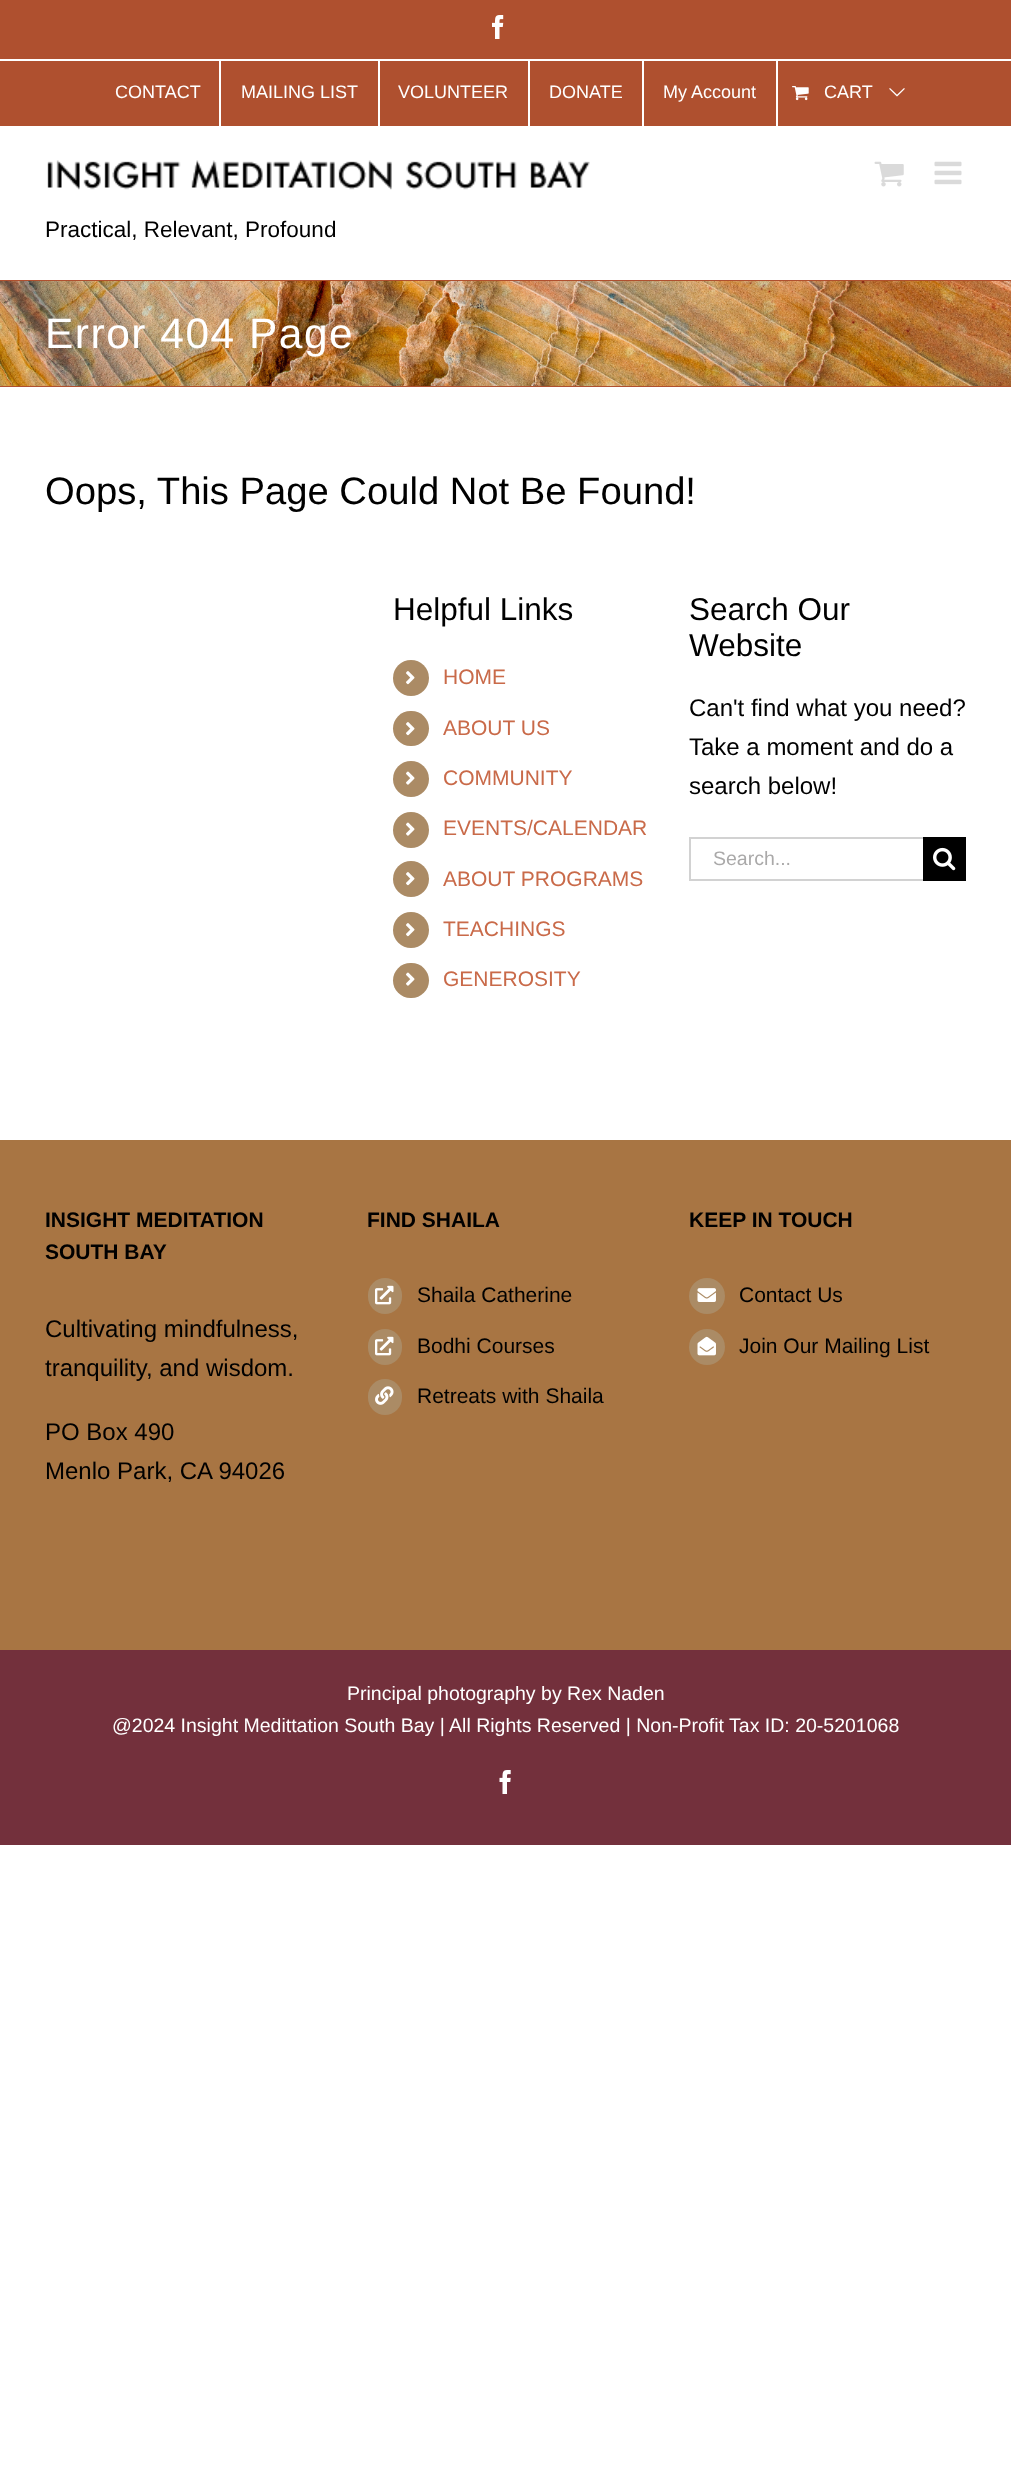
<svg xmlns="http://www.w3.org/2000/svg" width="1011" height="2466" viewBox="0 0 1011 2466">
  <rect width="100%" height="100%" fill="rgb(255,255,255)"/>
  <rect x="0" y="0" width="1011" height="126" fill="rgb(175,80,47)"/>
  <rect x="0" y="59" width="1011" height="2" fill="rgb(255,255,255)"/>
  <image x="492" y="15" width="12" height="24" href="pic1.png"/>
  <text x="115" y="98" font-family="Liberation Sans" font-size="18" fill="rgb(255,255,255)">CONTACT</text>
  <rect x="219" y="60" width="2" height="66" fill="rgb(255,255,255)"/>
  <text x="241" y="98" font-family="Liberation Sans" font-size="18" fill="rgb(255,255,255)">MAILING LIST</text>
  <rect x="378" y="60" width="2" height="66" fill="rgb(255,255,255)"/>
  <text x="398" y="98" font-family="Liberation Sans" font-size="18" fill="rgb(255,255,255)">VOLUNTEER</text>
  <rect x="528" y="60" width="2" height="66" fill="rgb(255,255,255)"/>
  <text x="549" y="98" font-family="Liberation Sans" font-size="18" fill="rgb(255,255,255)">DONATE</text>
  <rect x="642" y="60" width="2" height="66" fill="rgb(255,255,255)"/>
  <text x="663" y="98" font-family="Liberation Sans" font-size="18" fill="rgb(255,255,255)">My Account</text>
  <rect x="776" y="60" width="2" height="66" fill="rgb(255,255,255)"/>
  <image x="792" y="86" width="17" height="15" href="pic2.png"/>
  <text x="824" y="98" font-family="Liberation Sans" font-size="18" fill="rgb(255,255,255)">CART</text>
  <image x="889" y="88" width="16" height="9" href="pic3.png"/>
  <image x="874" y="161" width="30" height="26" href="pic4.png"/>
  <image x="934" y="161" width="28" height="24" href="pic5.png"/>
  <image x="47" y="160" width="543" height="30" href="pic6.png"/>
  <text x="45" y="237" font-family="Liberation Sans" font-size="22.5" fill="rgb(0,0,0)">Practical, Relevant, Profound</text>
  <image x="0" y="281" width="1011" height="105" href="pic7.png"/>
  <rect x="0" y="280" width="1011" height="1" fill="rgb(175,80,47)"/>
  <rect x="0" y="386" width="1011" height="1" fill="rgb(175,80,47)"/>
  <text x="45" y="348" font-family="Liberation Sans" font-size="42.5" letter-spacing="1.5" fill="rgb(255,255,255)">Error 404 Page</text>
  <text x="45" y="504" font-family="Liberation Sans" font-size="38.2" fill="rgb(0,0,0)">Oops, This Page Could Not Be Found!</text>
  <text x="393" y="620" font-family="Liberation Sans" font-size="31.5" fill="rgb(0,0,0)">Helpful Links</text>
  <circle cx="411" cy="678" r="18" fill="rgb(171,139,101)"/>
  <image x="406" y="671" width="9" height="14" href="pic8.png"/>
  <text x="443" y="684" font-family="Liberation Sans" font-size="21" fill="rgb(201,106,73)">HOME</text>
  <rect x="393" y="711" width="36" height="35" rx="17.5" fill="rgb(171,139,101)"/>
  <image x="406" y="722" width="9" height="14" href="pic8.png"/>
  <text x="443" y="735" font-family="Liberation Sans" font-size="21" fill="rgb(201,106,73)">ABOUT US</text>
  <circle cx="411" cy="779" r="18" fill="rgb(171,139,101)"/>
  <image x="406" y="771" width="9" height="14" href="pic9.png"/>
  <text x="443" y="785" font-family="Liberation Sans" font-size="21" fill="rgb(201,106,73)">COMMUNITY</text>
  <circle cx="411" cy="830" r="18" fill="rgb(171,139,101)"/>
  <image x="406" y="822" width="9" height="14" href="pic9.png"/>
  <text x="443" y="835" font-family="Liberation Sans" font-size="21" fill="rgb(201,106,73)">EVENTS/CALENDAR</text>
  <circle cx="411" cy="879" r="18" fill="rgb(171,139,101)"/>
  <image x="406" y="872" width="9" height="14" href="pic8.png"/>
  <text x="443" y="886" font-family="Liberation Sans" font-size="21" fill="rgb(201,106,73)">ABOUT PROGRAMS</text>
  <circle cx="411" cy="930" r="18" fill="rgb(171,139,101)"/>
  <image x="406" y="923" width="9" height="14" href="pic8.png"/>
  <text x="443" y="936" font-family="Liberation Sans" font-size="21" fill="rgb(201,106,73)">TEACHINGS</text>
  <rect x="393" y="963" width="36" height="35" rx="17.5" fill="rgb(171,139,101)"/>
  <image x="406" y="972" width="9" height="14" href="pic9.png"/>
  <text x="443" y="986" font-family="Liberation Sans" font-size="21" fill="rgb(201,106,73)">GENEROSITY</text>
  <g font-family="Liberation Sans" font-size="31.5" fill="rgb(0,0,0)">
    <text>
      <tspan x="689" y="620">Search Our</tspan>
      <tspan x="689" y="656">Website</tspan>
    </text>
  </g>
  <g font-family="Liberation Sans" font-size="24" fill="rgb(0,0,0)">
    <text>
      <tspan x="689" y="716">Can't find what you need?</tspan>
      <tspan x="689" y="755">Take a moment and do a</tspan>
      <tspan x="689" y="794">search below!</tspan>
    </text>
  </g>
  <rect x="689" y="837" width="234" height="2" fill="rgb(210,210,210)"/>
  <rect x="689" y="879" width="234" height="2" fill="rgb(210,210,210)"/>
  <rect x="689" y="837" width="2" height="44" fill="rgb(210,210,210)"/>
  <text x="713" y="865" font-family="Liberation Sans" font-size="19.5" fill="rgb(170,169,169)">Search...</text>
  <rect x="923" y="837" width="43" height="44" fill="rgb(0,0,0)"/>
  <image x="933" y="847" width="23" height="24" href="pic10.png"/>
  <rect x="0" y="1140" width="1011" height="510" fill="rgb(168,117,67)"/>
  <g font-family="Liberation Sans" font-size="21" font-weight="bold" fill="rgb(0,0,0)">
    <text>
      <tspan x="45" y="1227">INSIGHT MEDITATION</tspan>
      <tspan x="45" y="1259">SOUTH BAY</tspan>
    </text>
  </g>
  <g font-family="Liberation Sans" font-size="24" fill="rgb(0,0,0)">
    <text>
      <tspan x="45" y="1337">Cultivating mindfulness,</tspan>
      <tspan x="45" y="1376">tranquility, and wisdom.</tspan>
    </text>
    <text>
      <tspan x="45" y="1440">PO Box 490</tspan>
      <tspan x="45" y="1479">Menlo Park, CA 94026</tspan>
    </text>
  </g>
  <text x="367" y="1227" font-family="Liberation Sans" font-size="21" font-weight="bold" fill="rgb(0,0,0)">FIND SHAILA</text>
  <rect x="368" y="1278" width="34" height="36" rx="17" fill="rgb(171,139,101)"/>
  <image x="375" y="1285" width="19" height="20" href="pic11.png"/>
  <text x="417" y="1302" font-family="Liberation Sans" font-size="21" fill="rgb(0,0,0)">Shaila Catherine</text>
  <rect x="368" y="1329" width="34" height="36" rx="17" fill="rgb(171,139,101)"/>
  <image x="375" y="1336" width="19" height="20" href="pic11.png"/>
  <text x="417" y="1353" font-family="Liberation Sans" font-size="21" fill="rgb(0,0,0)">Bodhi Courses</text>
  <rect x="368" y="1379" width="34" height="36" rx="17" fill="rgb(171,139,101)"/>
  <image x="375" y="1386" width="19" height="19" href="pic12.png"/>
  <text x="417" y="1403" font-family="Liberation Sans" font-size="21" fill="rgb(0,0,0)">Retreats with Shaila</text>
  <text x="689" y="1227" font-family="Liberation Sans" font-size="21" font-weight="bold" fill="rgb(0,0,0)">KEEP IN TOUCH</text>
  <circle cx="707" cy="1296" r="18" fill="rgb(171,139,101)"/>
  <image x="697" y="1288" width="19" height="14" href="pic13.png"/>
  <text x="739" y="1302" font-family="Liberation Sans" font-size="21" fill="rgb(0,0,0)">Contact Us</text>
  <circle cx="707" cy="1347" r="18" fill="rgb(171,139,101)"/>
  <image x="697" y="1336" width="19" height="20" href="pic14.png"/>
  <text x="739" y="1353" font-family="Liberation Sans" font-size="21" fill="rgb(0,0,0)">Join Our Mailing List</text>
  <rect x="0" y="1650" width="1011" height="195" fill="rgb(115,48,60)"/>
  <g font-family="Liberation Sans" font-size="19.5" fill="rgb(255,255,255)">
    <text x="347" y="1700">Principal photography by Rex Naden</text>
    <text x="112" y="1732">@2024 Insight Medittation South Bay | All Rights Reserved | Non-Profit Tax ID: 20-5201068</text>
  </g>
  <image x="499" y="1770" width="12" height="24" href="pic15.png"/>
</svg>
